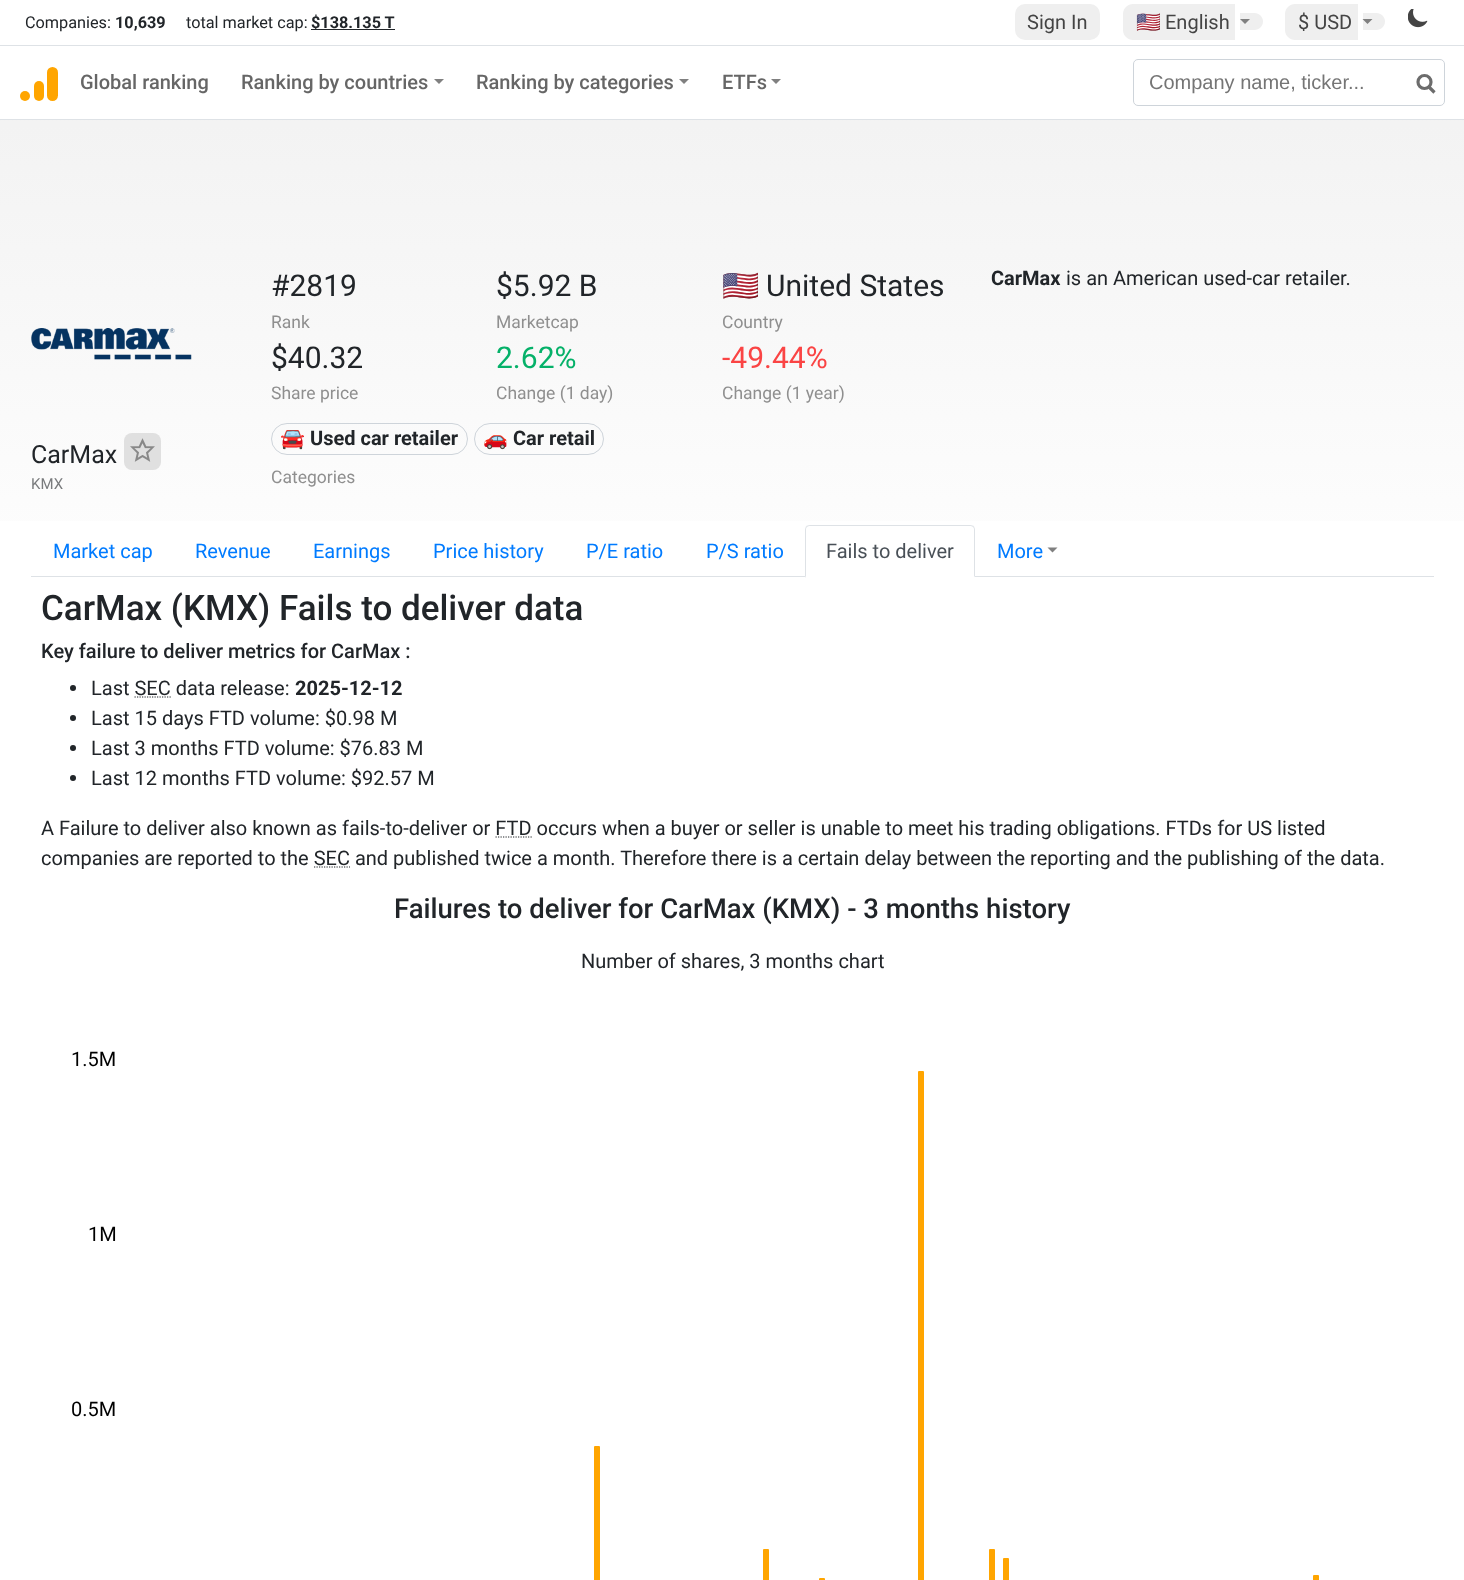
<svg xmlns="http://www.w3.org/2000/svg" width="1464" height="1580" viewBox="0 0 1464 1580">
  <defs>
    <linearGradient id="g1" gradientUnits="userSpaceOnUse" x1="733" y1="625" x2="733" y2="0"><stop offset="0" stop-color="rgb(255,255,255)"/><stop offset="1" stop-color="rgb(240,240,240)"/></linearGradient>
  </defs>
  <rect width="100%" height="100%" fill="rgb(255,255,255)"/>
  <rect x="0" y="120" width="1464" height="401" fill="url(#g1)"/>
  <text x="25" y="28" font-family="Roboto" font-size="16.25" fill="rgb(33,37,41)">Companies:</text>
  <text x="115" y="28" font-family="Roboto" font-size="16.25" font-weight="bold" fill="rgb(33,37,41)">10,639</text>
  <text x="186" y="28" font-family="Roboto" font-size="16.25" fill="rgb(33,37,41)">total market cap:</text>
  <rect x="311" y="29" width="84" height="1" fill="rgb(33,37,41)"/>
  <text x="311" y="28" font-family="Roboto" font-size="16.25" font-weight="bold" fill="rgb(33,37,41)">$138.135 T</text>
  <rect x="1015" y="4" width="85" height="36" rx="10" fill="rgb(239,239,239)"/>
  <text x="1027" y="29" font-family="Roboto" font-size="20" fill="rgb(68,68,68)">Sign In</text>
  <path d="M1133 4H1165V40H1133C1127.5 40 1123 35.5 1123 30V14C1123 8.5 1127.5 4 1133 4Z" fill="rgb(239,239,239)"/>
  <rect x="1165" y="4" width="70" height="36" fill="rgb(239,239,239)"/>
  <path d="M1240 13H1254.5C1259 13 1263 17 1263 21.5C1263 26 1259 30 1254.5 30H1240Z" fill="rgb(239,239,239)"/>
  <text x="1136" y="29" font-family="Noto Color Emoji" font-size="20" fill="rgb(68,68,68)">🇺🇸</text>
  <text x="1165" y="29" font-family="Roboto" font-size="20" fill="rgb(68,68,68)">English</text>
  <path d="M1240 19H1250L1245 24Z" fill="rgb(128,128,128)"/>
  <path d="M1295 4H1358V40H1295C1289.5 40 1285 35.5 1285 30V14C1285 8.5 1289.5 4 1295 4Z" fill="rgb(239,239,239)"/>
  <path d="M1363 13H1376.5C1381 13 1385 17 1385 21.5C1385 26 1381 30 1376.5 30H1363Z" fill="rgb(239,239,239)"/>
  <text x="1298" y="29" font-family="Roboto" font-size="20" fill="rgb(68,68,68)">$ USD</text>
  <path d="M1362.5 19H1372.5L1367.5 24Z" fill="rgb(128,128,128)"/>
  <image x="1408" y="9" width="20" height="19" href="pic1.png"/>
  <rect x="0" y="45" width="1464" height="1" fill="rgb(222,226,230)"/>
  <rect x="0" y="119" width="1464" height="1" fill="rgb(222,226,230)"/>
  <circle cx="25" cy="96" r="5" fill="rgb(255,165,0)"/>
  <rect x="34" y="81" width="10" height="20" rx="5" fill="rgb(255,165,0)"/>
  <rect x="47" y="67" width="11" height="34" rx="5.5" fill="rgb(255,165,0)"/>
  <g font-family="Roboto" font-size="20" font-weight="500" fill="rgb(102,102,102)">
    <text x="80" y="89">Global ranking</text>
    <text x="241" y="89">Ranking by countries</text>
  </g>
  <path d="M434 79H444L439 84Z" fill="rgb(128,128,128)"/>
  <text x="476" y="89" font-family="Roboto" font-size="20" font-weight="500" fill="rgb(102,102,102)">Ranking by categories</text>
  <path d="M679 79H689L684 84Z" fill="rgb(128,128,128)"/>
  <text x="722" y="89" font-family="Roboto" font-size="20" font-weight="500" fill="rgb(102,102,102)">ETFs</text>
  <path d="M771 79H781L776 84Z" fill="rgb(128,128,128)"/>
  <rect x="1133.5" y="59.5" width="311" height="46" rx="4.5" fill="none" stroke="rgb(206,212,218)"/>
  <text x="1149" y="89" font-family="Liberation Sans" font-size="20" fill="rgb(117,117,117)">Company name, ticker...</text>
  <path d="M1434.5 92.5L1428 86" fill="none" stroke="rgb(108,108,108)" stroke-width="3.2"/>
  <circle cx="1424.5" cy="82" r="6.5" fill="none" stroke="rgb(108,108,108)" stroke-width="3.2"/>
  <text x="271" y="296" font-family="Roboto" font-size="30" fill="rgb(33,37,41)">#2819</text>
  <text x="271" y="328" font-family="Roboto" font-size="17.5" fill="rgb(143,143,143)">Rank</text>
  <text x="496" y="296" font-family="Roboto" font-size="30" fill="rgb(33,37,41)">$5.92 B</text>
  <text x="496" y="328" font-family="Roboto" font-size="17.5" fill="rgb(143,143,143)">Marketcap</text>
  <text x="722" y="296" font-family="Noto Color Emoji" font-size="30" fill="rgb(33,37,41)">🇺🇸</text>
  <text x="766" y="296" font-family="Roboto" font-size="30" fill="rgb(33,37,41)">United States</text>
  <text x="722" y="328" font-family="Roboto" font-size="17.5" fill="rgb(143,143,143)">Country</text>
  <text x="271" y="368" font-family="Roboto" font-size="30" fill="rgb(33,37,41)">$40.32</text>
  <text x="271" y="399" font-family="Roboto" font-size="17.5" fill="rgb(143,143,143)">Share price</text>
  <text x="496" y="368" font-family="Roboto" font-size="30" fill="rgb(5,177,105)">2.62%</text>
  <text x="496" y="399" font-family="Roboto" font-size="17.5" fill="rgb(143,143,143)">Change (1 day)</text>
  <text x="722" y="368" font-family="Roboto" font-size="30" fill="rgb(250,68,68)">-49.44%</text>
  <text x="722" y="399" font-family="Roboto" font-size="17.5" fill="rgb(143,143,143)">Change (1 year)</text>
  <rect x="271.5" y="423.5" width="196" height="31" rx="15.5" fill="none" stroke="rgb(206,212,218)"/>
  <text x="280" y="445" font-family="Noto Color Emoji" font-size="20" font-weight="bold" fill="rgb(33,37,41)">🚘</text>
  <text x="310" y="445" font-family="Roboto" font-size="20" font-weight="bold" fill="rgb(33,37,41)">Used car retailer</text>
  <rect x="474.5" y="423.5" width="129" height="31" rx="15.5" fill="none" stroke="rgb(206,212,218)"/>
  <text x="483" y="445" font-family="Noto Color Emoji" font-size="20" font-weight="bold" fill="rgb(33,37,41)">🚗</text>
  <text x="513" y="445" font-family="Roboto" font-size="20" font-weight="bold" fill="rgb(33,37,41)">Car retail</text>
  <text x="271" y="483" font-family="Roboto" font-size="17.5" fill="rgb(143,143,143)">Categories</text>
  <text x="991" y="285" font-family="Roboto" font-size="20" font-weight="bold" fill="rgb(33,37,41)">CarMax</text>
  <text x="1066" y="285" font-family="Roboto" font-size="20" fill="rgb(33,37,41)">is an American used-car retailer.</text>
  <image x="31" y="328" width="161" height="32" href="pic2.png"/>
  <text x="31" y="463" font-family="Roboto" font-size="25" fill="rgb(33,37,41)">CarMax</text>
  <rect x="124" y="433" width="37" height="37" rx="8" fill="rgb(224,224,224)"/>
  <image x="130" y="438" width="25" height="24" href="pic3.png"/>
  <text x="31" y="489" font-family="Roboto" font-size="15" fill="rgb(121,123,125)">KMX</text>
  <rect x="31" y="576" width="1403" height="1" fill="rgb(222,226,230)"/>
  <g font-family="Roboto" font-size="20" fill="rgb(0,123,255)">
    <text x="53" y="558">Market cap</text>
    <text x="195" y="558">Revenue</text>
    <text x="313" y="558">Earnings</text>
    <text x="433" y="558">Price history</text>
    <text x="586" y="558">P/E ratio</text>
    <text x="706" y="558">P/S ratio</text>
  </g>
  <path d="M810 525H970C973 525 975 527 975 530V578H805V530C805 527 807 525 810 525Z" fill="rgb(255,255,255)"/>
  <path d="M810 525C808 525 807 526 806 526L807 527C808 526 809 526 810 526H970C971 526 972 526 973 527L974 526C973 526 972 525 970 525Z" fill="rgb(222,226,230)"/>
  <path d="M975 578V530C975 528 974 527 974 526L973 527C974 528 974 529 974 530V576Z" fill="rgb(222,226,230)"/>
  <path d="M975 578H805L806 576H974Z" fill="rgb(255,255,255)"/>
  <path d="M805 578L806 576V530C806 529 806 528 807 527L806 526C806 527 805 528 805 530Z" fill="rgb(222,226,230)"/>
  <text x="826" y="558" font-family="Roboto" font-size="20" fill="rgb(73,80,87)">Fails to deliver</text>
  <text x="997" y="558" font-family="Roboto" font-size="20" fill="rgb(0,123,255)">More</text>
  <path d="M1047.5 547.5H1057.5L1052.5 552.5Z" fill="rgb(128,128,128)"/>
  <text x="41" y="620" font-family="Roboto" font-size="35" font-weight="500" fill="rgb(33,37,41)">CarMax (KMX) Fails to deliver data</text>
  <text x="41" y="658" font-family="Roboto" font-size="20" font-weight="500" fill="rgb(33,37,41)">Key failure to deliver metrics for CarMax :</text>
  <circle cx="73" cy="688" r="3" fill="rgb(33,37,41)"/>
  <text x="91" y="695" font-family="Roboto" font-size="20" fill="rgb(33,37,41)">Last SEC data release:</text>
  <text x="295" y="695" font-family="Roboto" font-size="20" font-weight="bold" fill="rgb(33,37,41)">2025-12-12</text>
  <path d="M134.5 697H171" fill="none" stroke="rgb(33,37,41)" stroke-width="1.2" stroke-dasharray="1.25 1.25"/>
  <circle cx="73" cy="718" r="3" fill="rgb(33,37,41)"/>
  <text x="91" y="725" font-family="Roboto" font-size="20" fill="rgb(33,37,41)">Last 15 days FTD volume: $0.98 M</text>
  <circle cx="73" cy="748" r="3" fill="rgb(33,37,41)"/>
  <text x="91" y="755" font-family="Roboto" font-size="20" fill="rgb(33,37,41)">Last 3 months FTD volume: $76.83 M</text>
  <circle cx="73" cy="778" r="3" fill="rgb(33,37,41)"/>
  <g font-family="Roboto" font-size="20" fill="rgb(33,37,41)">
    <text x="91" y="785">Last 12 months FTD volume: $92.57 M</text>
    <text x="41" y="835">A Failure to deliver also known as fails-to-deliver or FTD occurs when a buyer or seller is unable to meet his trading obligations. FTDs for US listed</text>
  </g>
  <path d="M495.5 837H532" fill="none" stroke="rgb(33,37,41)" stroke-width="1.2" stroke-dasharray="1.25 1.25"/>
  <text x="41" y="865" font-family="Roboto" font-size="20" fill="rgb(33,37,41)">companies are reported to the SEC and published twice a month. Therefore there is a certain delay between the reporting and the publishing of the data.</text>
  <path d="M314 867H350" fill="none" stroke="rgb(33,37,41)" stroke-width="1.2" stroke-dasharray="1.25 1.25"/>
  <text x="394" y="918" font-family="Roboto" font-size="27.5" font-weight="500" fill="rgb(33,37,41)">Failures to deliver for CarMax (KMX) - 3 months history</text>
  <text x="581" y="968" font-family="Roboto" font-size="20" fill="rgb(33,37,41)">Number of shares, 3 months chart</text>
  <g font-family="Roboto" font-size="20" fill="rgb(0,0,0)">
    <text x="71" y="1066">1.5M</text>
    <text x="88" y="1241">1M</text>
    <text x="71" y="1416">0.5M</text>
  </g>
  <rect x="594" y="1446" width="6" height="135" rx="1" fill="rgb(255,165,0)"/>
  <rect x="763" y="1549" width="6" height="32" rx="1" fill="rgb(255,165,0)"/>
  <rect x="819" y="1578" width="6" height="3" rx="1" fill="rgb(255,165,0)"/>
  <rect x="918" y="1071" width="6" height="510" rx="1" fill="rgb(255,165,0)"/>
  <rect x="989" y="1549" width="6" height="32" rx="1" fill="rgb(255,165,0)"/>
  <rect x="1003" y="1558" width="6" height="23" rx="1" fill="rgb(255,165,0)"/>
  <rect x="1313" y="1575" width="6" height="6" rx="1" fill="rgb(255,165,0)"/>
</svg>
